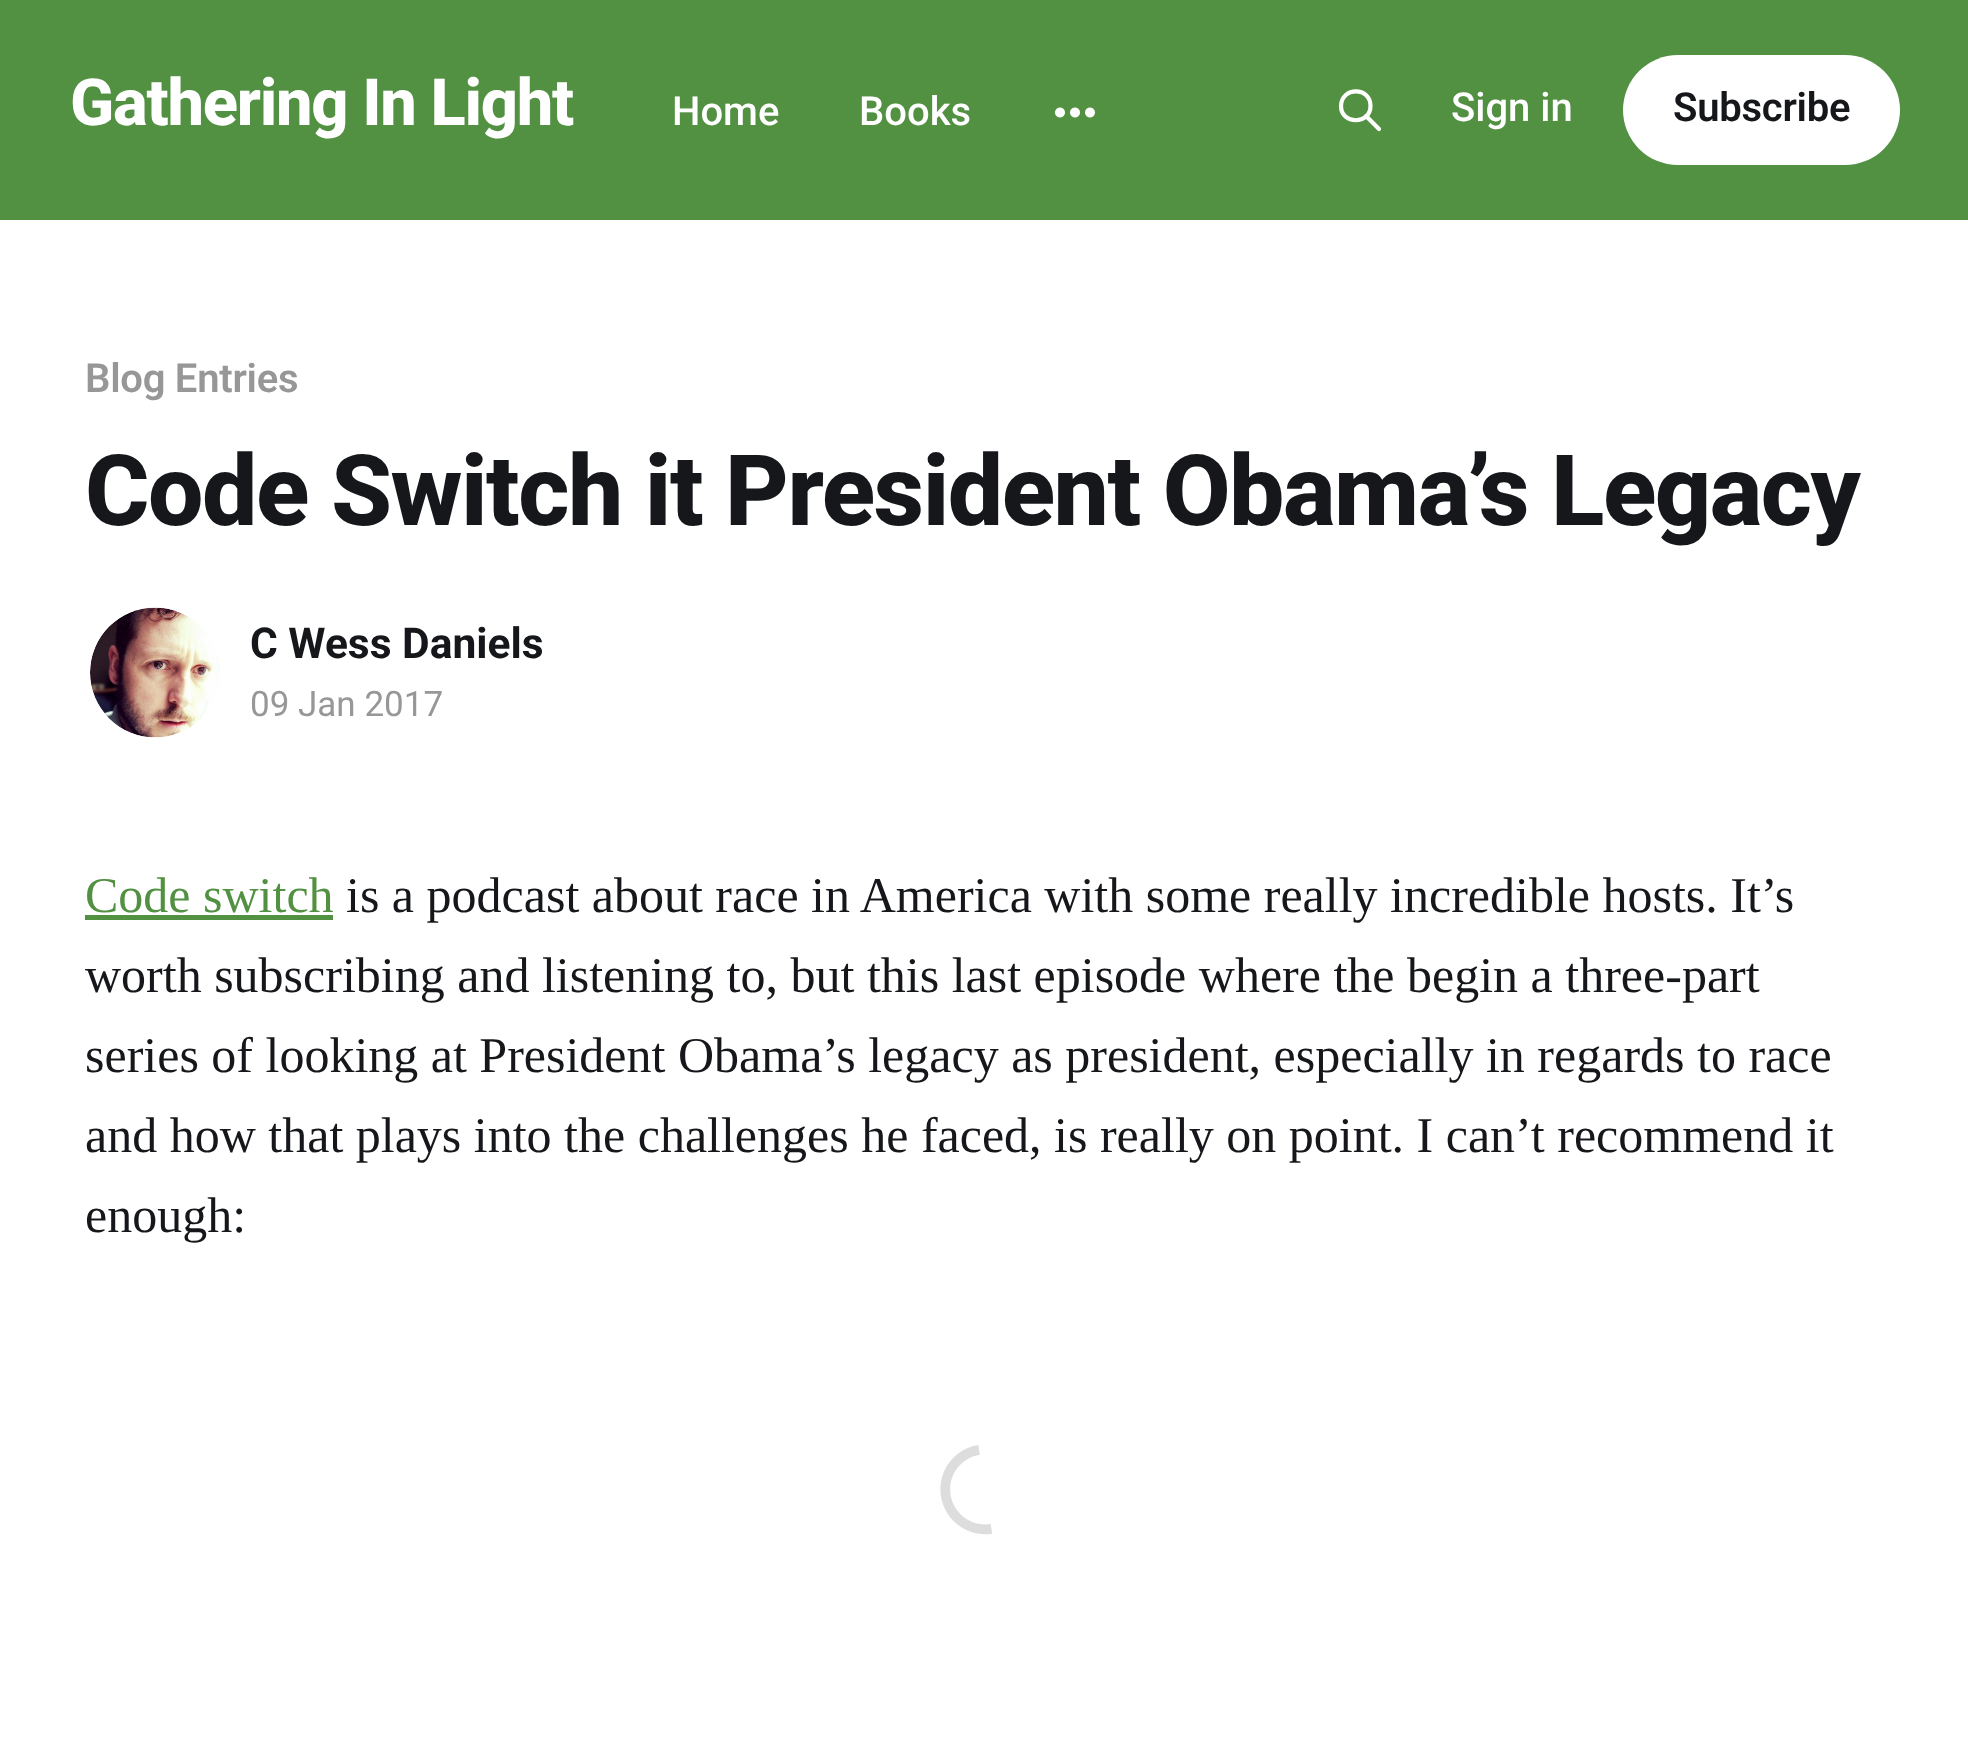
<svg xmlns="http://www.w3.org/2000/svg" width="1968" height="1745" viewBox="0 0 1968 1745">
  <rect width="100%" height="100%" fill="rgb(255,255,255)"/>
  <rect x="0" y="0" width="1968" height="220" fill="rgb(82,144,66)"/>
  <text x="70" y="125" font-family="Roboto" font-size="65" font-weight="800" letter-spacing="-1.25" fill="rgb(255,255,255)">Gathering In Light</text>
  <g font-family="Roboto" font-size="40" font-weight="500" fill="rgb(255,255,255)">
    <text x="672" y="125">Home</text>
    <text x="859" y="125">Books</text>
  </g>
  <image x="1055" y="107" width="40" height="11" href="pic1.png"/>
  <path d="M1379 129L1366 116M1370.5 106C1370.5 125 1341 125 1341 106C1341.5 86.5 1370.5 86.5 1370.5 106Z" fill="none" stroke="rgb(255,255,255)" stroke-width="4.2" stroke-linecap="round" stroke-linejoin="round"/>
  <text x="1451" y="121" font-family="Roboto" font-size="40" font-weight="500" fill="rgb(255,255,255)">Sign in</text>
  <rect x="1623" y="55" width="277" height="110" rx="55" fill="rgb(255,255,255)"/>
  <text x="1673" y="121" font-family="Roboto" font-size="40" font-weight="600" letter-spacing="-0.25" fill="rgb(21,23,26)">Subscribe</text>
  <text x="85" y="392" font-family="Roboto" font-size="40" font-weight="600" letter-spacing="-0.25" fill="rgb(151,151,151)">Blog Entries</text>
  <text x="85" y="525" font-family="Roboto" font-size="98.5" font-weight="800" letter-spacing="-1.5" fill="rgb(21,23,26)">Code Switch it President Obama’s Legacy</text>
  <image x="90" y="607" width="130" height="131" href="pic2.png"/>
  <text x="250" y="658" font-family="Roboto" font-size="42.5" font-weight="bold" fill="rgb(21,23,26)">C Wess Daniels</text>
  <text x="250" y="716" font-family="Roboto" font-size="35" fill="rgb(151,151,151)">09 Jan 2017</text>
  <text x="85" y="912" font-family="Liberation Serif" font-size="50" fill="rgb(82,144,66)">Code switch</text>
  <rect x="85" y="915" width="248" height="5" fill="rgb(82,144,66)"/>
  <g font-family="Liberation Serif" font-size="50" fill="rgb(21,23,26)">
    <text x="346" y="912">is a podcast about race in America with some really incredible hosts. It’s</text>
    <text>
      <tspan x="85" y="992">worth subscribing and listening to, but this last episode where the begin a three-part</tspan>
      <tspan x="85" y="1072">series of looking at President Obama’s legacy as president, especially in regards to race</tspan>
      <tspan x="85" y="1152">and how that plays into the challenges he faced, is really on point. I can’t recommend it</tspan>
      <tspan x="85" y="1232">enough:</tspan>
    </text>
  </g>
  <image x="940" y="1445" width="52" height="90" href="pic3.png"/>
</svg>
